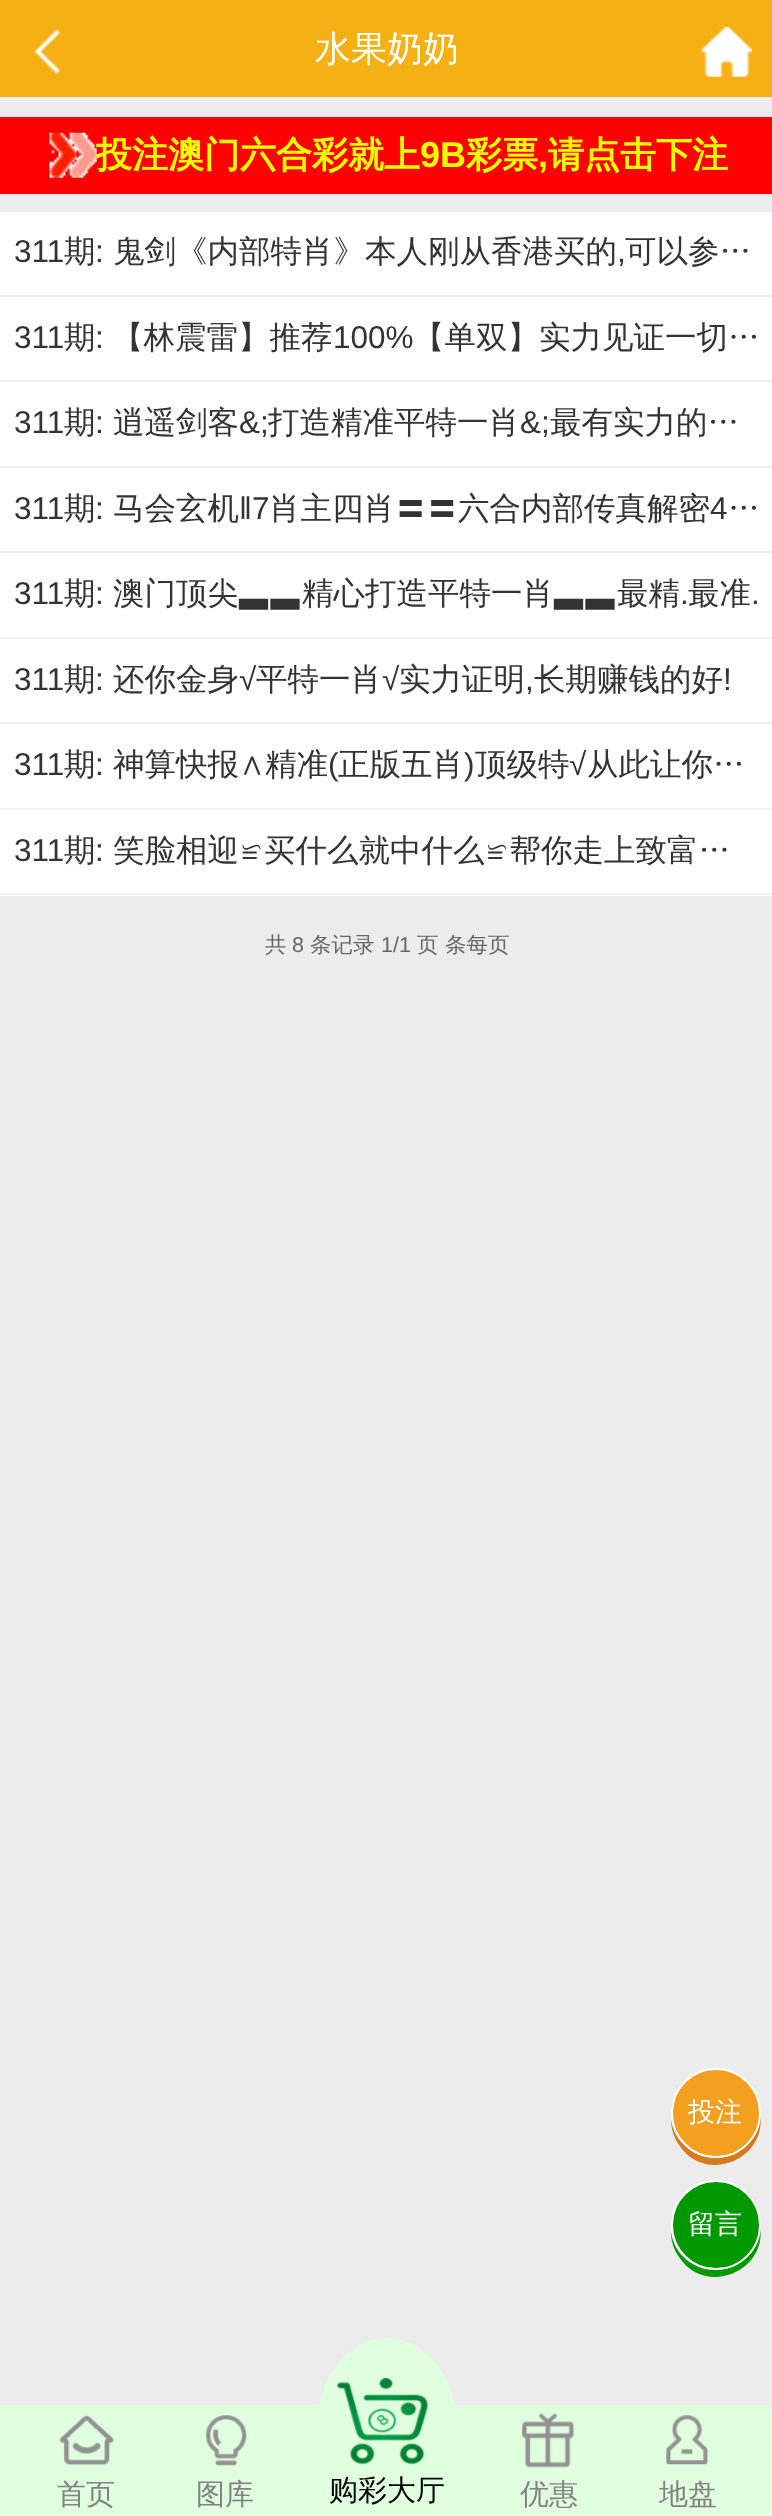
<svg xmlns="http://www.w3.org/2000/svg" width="772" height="2516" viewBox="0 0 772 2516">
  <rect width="100%" height="100%" fill="rgb(236,236,236)"/>
  <rect x="0" y="0" width="772" height="97" fill="rgb(245,176,20)"/>
  <rect x="0" y="97" width="772" height="2" fill="rgb(239,239,239)"/>
  <image x="34" y="29" width="27" height="45" href="pic1.png"/>
  <text x="315" y="61" font-family="WenQuanYi Zen Hei" font-size="36" font-weight="500" fill="rgb(255,255,255)">水果奶奶</text>
  <image x="701" y="26" width="51" height="51" href="pic2.png"/>
  <rect x="0" y="117" width="772" height="77" fill="rgb(255,0,0)"/>
  <image x="49" y="132" width="48" height="46" href="pic3.png"/>
  <text x="96" y="167" font-family="WenQuanYi Zen Hei" font-size="36" font-weight="bold" fill="rgb(238,255,0)">投注澳门六合彩就上</text>
  <text x="420" y="167" font-family="Liberation Sans" font-size="36" font-weight="bold" fill="rgb(238,255,0)">9B</text>
  <text x="466" y="167" font-family="WenQuanYi Zen Hei" font-size="36" font-weight="bold" fill="rgb(238,255,0)">彩票</text>
  <text x="538" y="167" font-family="Liberation Sans" font-size="36" font-weight="bold" fill="rgb(238,255,0)">,</text>
  <text x="548" y="167" font-family="WenQuanYi Zen Hei" font-size="36" font-weight="bold" fill="rgb(238,255,0)">请点击下注</text>
  <rect x="0" y="212" width="772" height="83" fill="rgb(255,255,255)"/>
  <rect x="0" y="295" width="772" height="2" fill="rgb(239,239,239)"/>
  <text x="14" y="262" font-family="Liberation Sans" font-size="31.5" fill="rgb(51,51,51)">311</text>
  <text x="64" y="262" font-family="WenQuanYi Zen Hei" font-size="31.5" font-weight="500" fill="rgb(51,51,51)">期</text>
  <text x="95" y="262" font-family="Liberation Sans" font-size="31.5" fill="rgb(51,51,51)">:</text>
  <text x="113" y="262" font-family="WenQuanYi Zen Hei" font-size="31.5" font-weight="500" fill="rgb(51,51,51)">鬼剑《内部特肖》本人刚从香港买的</text>
  <text x="617" y="262" font-family="Liberation Sans" font-size="31.5" fill="rgb(51,51,51)">,</text>
  <text x="625" y="262" font-family="WenQuanYi Zen Hei" font-size="31.5" font-weight="500" fill="rgb(51,51,51)">可以参…</text>
  <rect x="0" y="297" width="772" height="169" fill="rgb(255,255,255)"/>
  <rect x="0" y="380" width="772" height="2" fill="rgb(239,239,239)"/>
  <text x="14" y="348" font-family="Liberation Sans" font-size="31.5" fill="rgb(51,51,51)">311</text>
  <text x="64" y="348" font-family="WenQuanYi Zen Hei" font-size="31.5" font-weight="500" fill="rgb(51,51,51)">期</text>
  <text x="95" y="348" font-family="Liberation Sans" font-size="31.5" fill="rgb(51,51,51)">:</text>
  <text x="112" y="348" font-family="WenQuanYi Zen Hei" font-size="31.5" font-weight="500" fill="rgb(51,51,51)">【林震雷】推荐</text>
  <text x="333" y="348" font-family="Liberation Sans" font-size="31.5" fill="rgb(51,51,51)">100%</text>
  <text x="413" y="348" font-family="WenQuanYi Zen Hei" font-size="31.5" font-weight="500" fill="rgb(51,51,51)">【单双】实力见证一切…</text>
  <rect x="0" y="466" width="772" height="2" fill="rgb(239,239,239)"/>
  <text x="14" y="433" font-family="Liberation Sans" font-size="31.5" fill="rgb(51,51,51)">311</text>
  <text x="64" y="433" font-family="WenQuanYi Zen Hei" font-size="31.5" font-weight="500" fill="rgb(51,51,51)">期</text>
  <text x="95" y="433" font-family="Liberation Sans" font-size="31.5" fill="rgb(51,51,51)">:</text>
  <text x="113" y="433" font-family="WenQuanYi Zen Hei" font-size="31.5" font-weight="500" fill="rgb(51,51,51)">逍遥剑客</text>
  <text x="239" y="433" font-family="Liberation Sans" font-size="31.5" fill="rgb(51,51,51)">&amp;;</text>
  <text x="268" y="433" font-family="WenQuanYi Zen Hei" font-size="31.5" font-weight="500" fill="rgb(51,51,51)">打造精准平特一肖</text>
  <text x="520" y="433" font-family="Liberation Sans" font-size="31.5" fill="rgb(51,51,51)">&amp;;</text>
  <text x="550" y="433" font-family="WenQuanYi Zen Hei" font-size="31.5" font-weight="500" fill="rgb(51,51,51)">最有实力的…</text>
  <rect x="0" y="468" width="772" height="169" fill="rgb(255,255,255)"/>
  <rect x="0" y="551" width="772" height="2" fill="rgb(239,239,239)"/>
  <text x="14" y="519" font-family="Liberation Sans" font-size="31.5" fill="rgb(51,51,51)">311</text>
  <text x="64" y="519" font-family="WenQuanYi Zen Hei" font-size="31.5" font-weight="500" fill="rgb(51,51,51)">期</text>
  <text x="95" y="519" font-family="Liberation Sans" font-size="31.5" fill="rgb(51,51,51)">:</text>
  <text x="113" y="519" font-family="WenQuanYi Zen Hei" font-size="31.5" font-weight="500" fill="rgb(51,51,51)">马会玄机</text>
  <text x="239" y="519" font-family="Liberation Sans" font-size="31.5" fill="rgb(51,51,51)">‖7</text>
  <text x="269" y="519" font-family="WenQuanYi Zen Hei" font-size="31.5" font-weight="500" fill="rgb(51,51,51)">肖主四肖〓〓六合内部传真解密</text>
  <text x="710" y="519" font-family="Liberation Sans" font-size="31.5" fill="rgb(51,51,51)">4</text>
  <text x="728" y="519" font-family="WenQuanYi Zen Hei" font-size="31.5" font-weight="500" fill="rgb(51,51,51)">…</text>
  <rect x="0" y="637" width="772" height="2" fill="rgb(239,239,239)"/>
  <text x="14" y="604" font-family="Liberation Sans" font-size="31.5" fill="rgb(51,51,51)">311</text>
  <text x="64" y="604" font-family="WenQuanYi Zen Hei" font-size="31.5" font-weight="500" fill="rgb(51,51,51)">期</text>
  <text x="95" y="604" font-family="Liberation Sans" font-size="31.5" fill="rgb(51,51,51)">:</text>
  <text x="113" y="604" font-family="WenQuanYi Zen Hei" font-size="31.5" font-weight="500" fill="rgb(51,51,51)">澳门顶尖▃▃精心打造平特一肖▃▃最精</text>
  <text x="680" y="604" font-family="Liberation Sans" font-size="31.5" fill="rgb(51,51,51)">.</text>
  <text x="688" y="604" font-family="WenQuanYi Zen Hei" font-size="31.5" font-weight="500" fill="rgb(51,51,51)">最准</text>
  <text x="751" y="604" font-family="Liberation Sans" font-size="31.5" fill="rgb(51,51,51)">.</text>
  <rect x="0" y="639" width="772" height="169" fill="rgb(255,255,255)"/>
  <rect x="0" y="722" width="772" height="2" fill="rgb(239,239,239)"/>
  <text x="14" y="690" font-family="Liberation Sans" font-size="31.5" fill="rgb(51,51,51)">311</text>
  <text x="64" y="690" font-family="WenQuanYi Zen Hei" font-size="31.5" font-weight="500" fill="rgb(51,51,51)">期</text>
  <text x="95" y="690" font-family="Liberation Sans" font-size="31.5" fill="rgb(51,51,51)">:</text>
  <text x="113" y="690" font-family="WenQuanYi Zen Hei" font-size="31.5" font-weight="500" fill="rgb(51,51,51)">还你金身</text>
  <text x="239" y="690" font-family="Liberation Sans" font-size="31.5" fill="rgb(51,51,51)">√</text>
  <text x="256" y="690" font-family="WenQuanYi Zen Hei" font-size="31.5" font-weight="500" fill="rgb(51,51,51)">平特一肖</text>
  <text x="382" y="690" font-family="Liberation Sans" font-size="31.5" fill="rgb(51,51,51)">√</text>
  <text x="399" y="690" font-family="WenQuanYi Zen Hei" font-size="31.5" font-weight="500" fill="rgb(51,51,51)">实力证明</text>
  <text x="525" y="690" font-family="Liberation Sans" font-size="31.5" fill="rgb(51,51,51)">,</text>
  <text x="534" y="690" font-family="WenQuanYi Zen Hei" font-size="31.5" font-weight="500" fill="rgb(51,51,51)">长期赚钱的好</text>
  <text x="723" y="690" font-family="Liberation Sans" font-size="31.5" fill="rgb(51,51,51)">!</text>
  <rect x="0" y="808" width="772" height="2" fill="rgb(239,239,239)"/>
  <text x="14" y="775" font-family="Liberation Sans" font-size="31.5" fill="rgb(51,51,51)">311</text>
  <text x="64" y="775" font-family="WenQuanYi Zen Hei" font-size="31.5" font-weight="500" fill="rgb(51,51,51)">期</text>
  <text x="95" y="775" font-family="Liberation Sans" font-size="31.5" fill="rgb(51,51,51)">:</text>
  <text x="113" y="775" font-family="WenQuanYi Zen Hei" font-size="31.5" font-weight="500" fill="rgb(51,51,51)">神算快报∧精准</text>
  <text x="328" y="775" font-family="Liberation Sans" font-size="31.5" fill="rgb(51,51,51)">(</text>
  <text x="338" y="775" font-family="WenQuanYi Zen Hei" font-size="31.5" font-weight="500" fill="rgb(51,51,51)">正版五肖</text>
  <text x="464" y="775" font-family="Liberation Sans" font-size="31.5" fill="rgb(51,51,51)">)</text>
  <text x="475" y="775" font-family="WenQuanYi Zen Hei" font-size="31.5" font-weight="500" fill="rgb(51,51,51)">顶级特</text>
  <text x="569" y="775" font-family="Liberation Sans" font-size="31.5" fill="rgb(51,51,51)">√</text>
  <text x="587" y="775" font-family="WenQuanYi Zen Hei" font-size="31.5" font-weight="500" fill="rgb(51,51,51)">从此让你…</text>
  <rect x="0" y="810" width="772" height="86" fill="rgb(255,255,255)"/>
  <rect x="0" y="893" width="772" height="2" fill="rgb(239,239,239)"/>
  <text x="14" y="861" font-family="Liberation Sans" font-size="31.5" fill="rgb(51,51,51)">311</text>
  <text x="64" y="861" font-family="WenQuanYi Zen Hei" font-size="31.5" font-weight="500" fill="rgb(51,51,51)">期</text>
  <text x="95" y="861" font-family="Liberation Sans" font-size="31.5" fill="rgb(51,51,51)">:</text>
  <text x="113" y="861" font-family="WenQuanYi Zen Hei" font-size="31.5" font-weight="500" fill="rgb(51,51,51)">笑脸相迎≌买什么就中什么≌帮你走上致富…</text>
  <text x="265" y="952" font-family="WenQuanYi Zen Hei" font-size="21.5" font-weight="500" fill="rgb(102,102,102)">共</text>
  <text x="292" y="952" font-family="Liberation Sans" font-size="21.5" fill="rgb(102,102,102)">8</text>
  <text x="310" y="952" font-family="WenQuanYi Zen Hei" font-size="21.5" font-weight="500" fill="rgb(102,102,102)">条记录</text>
  <text x="381" y="952" font-family="Liberation Sans" font-size="21.5" fill="rgb(102,102,102)">1/1</text>
  <text x="417" y="952" font-family="WenQuanYi Zen Hei" font-size="21.5" font-weight="500" fill="rgb(102,102,102)">页 条每页</text>
  <path d="M760 2113C760 2138 740 2158 716 2158C693 2158 674 2141 671 2119C671 2129 674 2138 679 2145C705 2185 768 2160 760 2113Z" fill="rgb(213,123,29)"/>
  <circle cx="716" cy="2113" r="44" fill="rgb(243,159,32)" stroke="rgb(255,255,255)" stroke-width="2"/>
  <text x="688" y="2121" font-family="WenQuanYi Zen Hei" font-size="27" font-weight="500" fill="rgb(255,255,255)">投注</text>
  <path d="M760 2225C760 2250 740 2270 716 2270C693 2270 674 2254 671 2232C671 2241 674 2250 679 2257C705 2297 768 2272 760 2225Z" fill="rgb(0,153,0)"/>
  <circle cx="716" cy="2225" r="44" fill="rgb(0,153,0)" stroke="rgb(255,255,255)" stroke-width="2"/>
  <text x="688" y="2233" font-family="WenQuanYi Zen Hei" font-size="27" font-weight="500" fill="rgb(255,255,255)">留言</text>
  <rect x="0" y="2405" width="772" height="111" fill="rgb(224,255,223)"/>
  <image x="59" y="2415" width="55" height="51" href="pic4.png"/>
  <text x="57" y="2504" font-family="WenQuanYi Zen Hei" font-size="29" font-weight="500" fill="rgb(130,130,130)">首页</text>
  <image x="205" y="2415" width="42" height="51" href="pic5.png"/>
  <text x="196" y="2504" font-family="WenQuanYi Zen Hei" font-size="29" font-weight="500" fill="rgb(130,130,130)">图库</text>
  <ellipse cx="387" cy="2428" rx="70" ry="90" fill="rgb(224,255,223)"/>
  <image x="337" y="2378" width="92" height="87" href="pic6.png"/>
  <text x="329" y="2500" font-family="WenQuanYi Zen Hei" font-size="29" font-weight="500" fill="rgb(0,0,0)">购彩大厅</text>
  <image x="522" y="2413" width="53" height="55" href="pic7.png"/>
  <text x="520" y="2504" font-family="WenQuanYi Zen Hei" font-size="29" font-weight="500" fill="rgb(130,130,130)">优惠</text>
  <image x="666" y="2415" width="43" height="50" href="pic8.png"/>
  <text x="659" y="2504" font-family="WenQuanYi Zen Hei" font-size="29" font-weight="500" fill="rgb(130,130,130)">地盘</text>
</svg>
